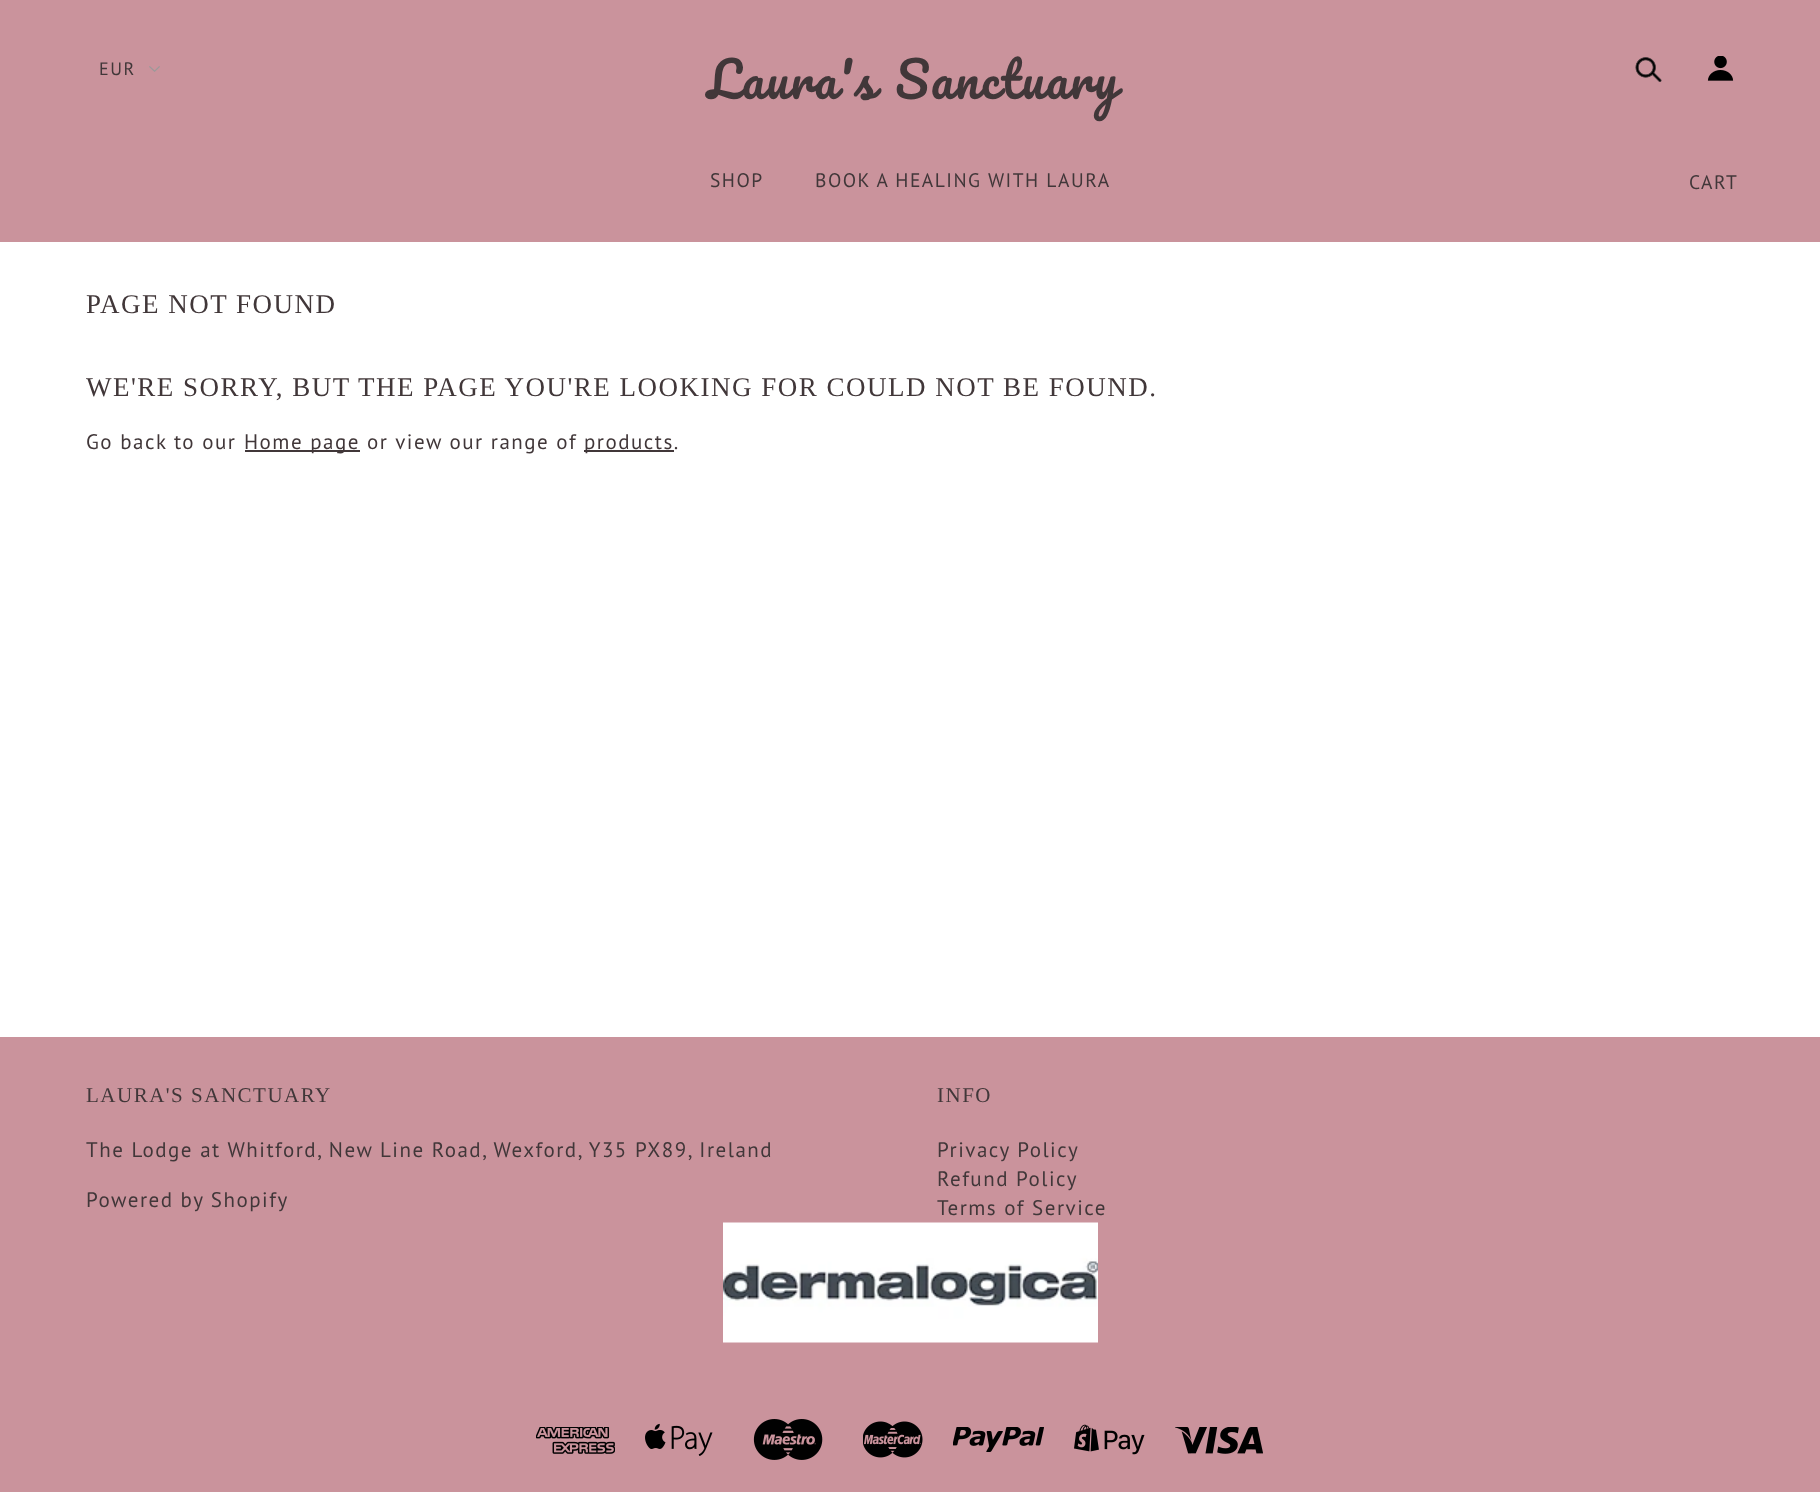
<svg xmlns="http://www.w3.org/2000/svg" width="1820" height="1492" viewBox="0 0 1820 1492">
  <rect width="100%" height="100%" fill="rgb(255,255,255)"/>
  <rect x="0" y="0" width="1820" height="242" fill="rgb(202,147,156)"/>
  <image x="149" y="66" width="11" height="6" href="pic1.png"/>
  <text x="99" y="75" font-family="PT Sans" font-size="18" letter-spacing="1.5" fill="rgb(65,55,57)">EUR</text>
  <text x="707" y="99" word-spacing="4" font-family="Pacifico" font-size="49" letter-spacing="1.5" fill="rgb(65,55,57)">Laura's Sanctuary</text>
  <image x="1635" y="57" width="27" height="25" href="pic2.png"/>
  <image x="1707" y="56" width="27" height="25" href="pic3.png"/>
  <g font-family="PT Sans" font-size="19.5" letter-spacing="1.5" fill="rgb(65,55,57)">
    <text x="710" y="187">SHOP</text>
    <text x="815" y="187">BOOK A HEALING WITH LAURA</text>
    <text x="1689" y="189">CART</text>
  </g>
  <g font-family="Liberation Serif" font-size="27" letter-spacing="1.5" fill="rgb(65,55,57)">
    <text x="86" y="313">PAGE NOT FOUND</text>
    <text x="86" y="396">WE'RE SORRY, BUT THE PAGE YOU'RE LOOKING FOR COULD NOT BE FOUND.</text>
  </g>
  <text x="86" y="449" font-family="PT Sans" font-size="21" letter-spacing="1.5" fill="rgb(65,55,57)">Go back to our</text>
  <rect x="245" y="450" width="115" height="2" fill="rgb(65,55,57)"/>
  <text x="244" y="449" font-family="PT Sans" font-size="21" letter-spacing="1.5" fill="rgb(65,55,57)">Home page or view our range of</text>
  <rect x="584" y="450" width="90" height="2" fill="rgb(65,55,57)"/>
  <text x="584" y="449" font-family="PT Sans" font-size="21" letter-spacing="1.5" fill="rgb(65,55,57)">products.</text>
  <rect x="0" y="1037" width="1820" height="455" fill="rgb(202,147,156)"/>
  <text x="86" y="1102" font-family="Liberation Serif" font-size="21" letter-spacing="1.5" fill="rgb(65,55,57)">LAURA'S SANCTUARY</text>
  <g font-family="PT Sans" font-size="21" letter-spacing="1.5" fill="rgb(65,55,57)">
    <text x="86" y="1157">The Lodge at Whitford, New Line Road, Wexford, Y35 PX89, Ireland</text>
    <text x="86" y="1207">Powered by Shopify</text>
  </g>
  <text x="937" y="1102" font-family="Liberation Serif" font-size="21" letter-spacing="1.5" fill="rgb(65,55,57)">INFO</text>
  <g font-family="PT Sans" font-size="21" letter-spacing="1.5" fill="rgb(65,55,57)">
    <text>
      <tspan x="937" y="1157">Privacy Policy</tspan>
      <tspan x="937" y="1186">Refund Policy</tspan>
      <tspan x="937" y="1215">Terms of Service</tspan>
    </text>
  </g>
  <image x="723" y="1222" width="375" height="121" href="pic4.png"/>
  <image x="536" y="1427" width="79" height="27" href="pic5.png"/>
  <image x="645" y="1423" width="68" height="33" href="pic6.png"/>
  <image x="753" y="1419" width="70" height="41" href="pic7.png"/>
  <image x="863" y="1421" width="60" height="37" href="pic8.png"/>
  <image x="953" y="1427" width="91" height="25" href="pic9.png"/>
  <image x="1074" y="1424" width="71" height="31" href="pic10.png"/>
  <image x="1175" y="1427" width="88" height="27" href="pic11.png"/>
</svg>
